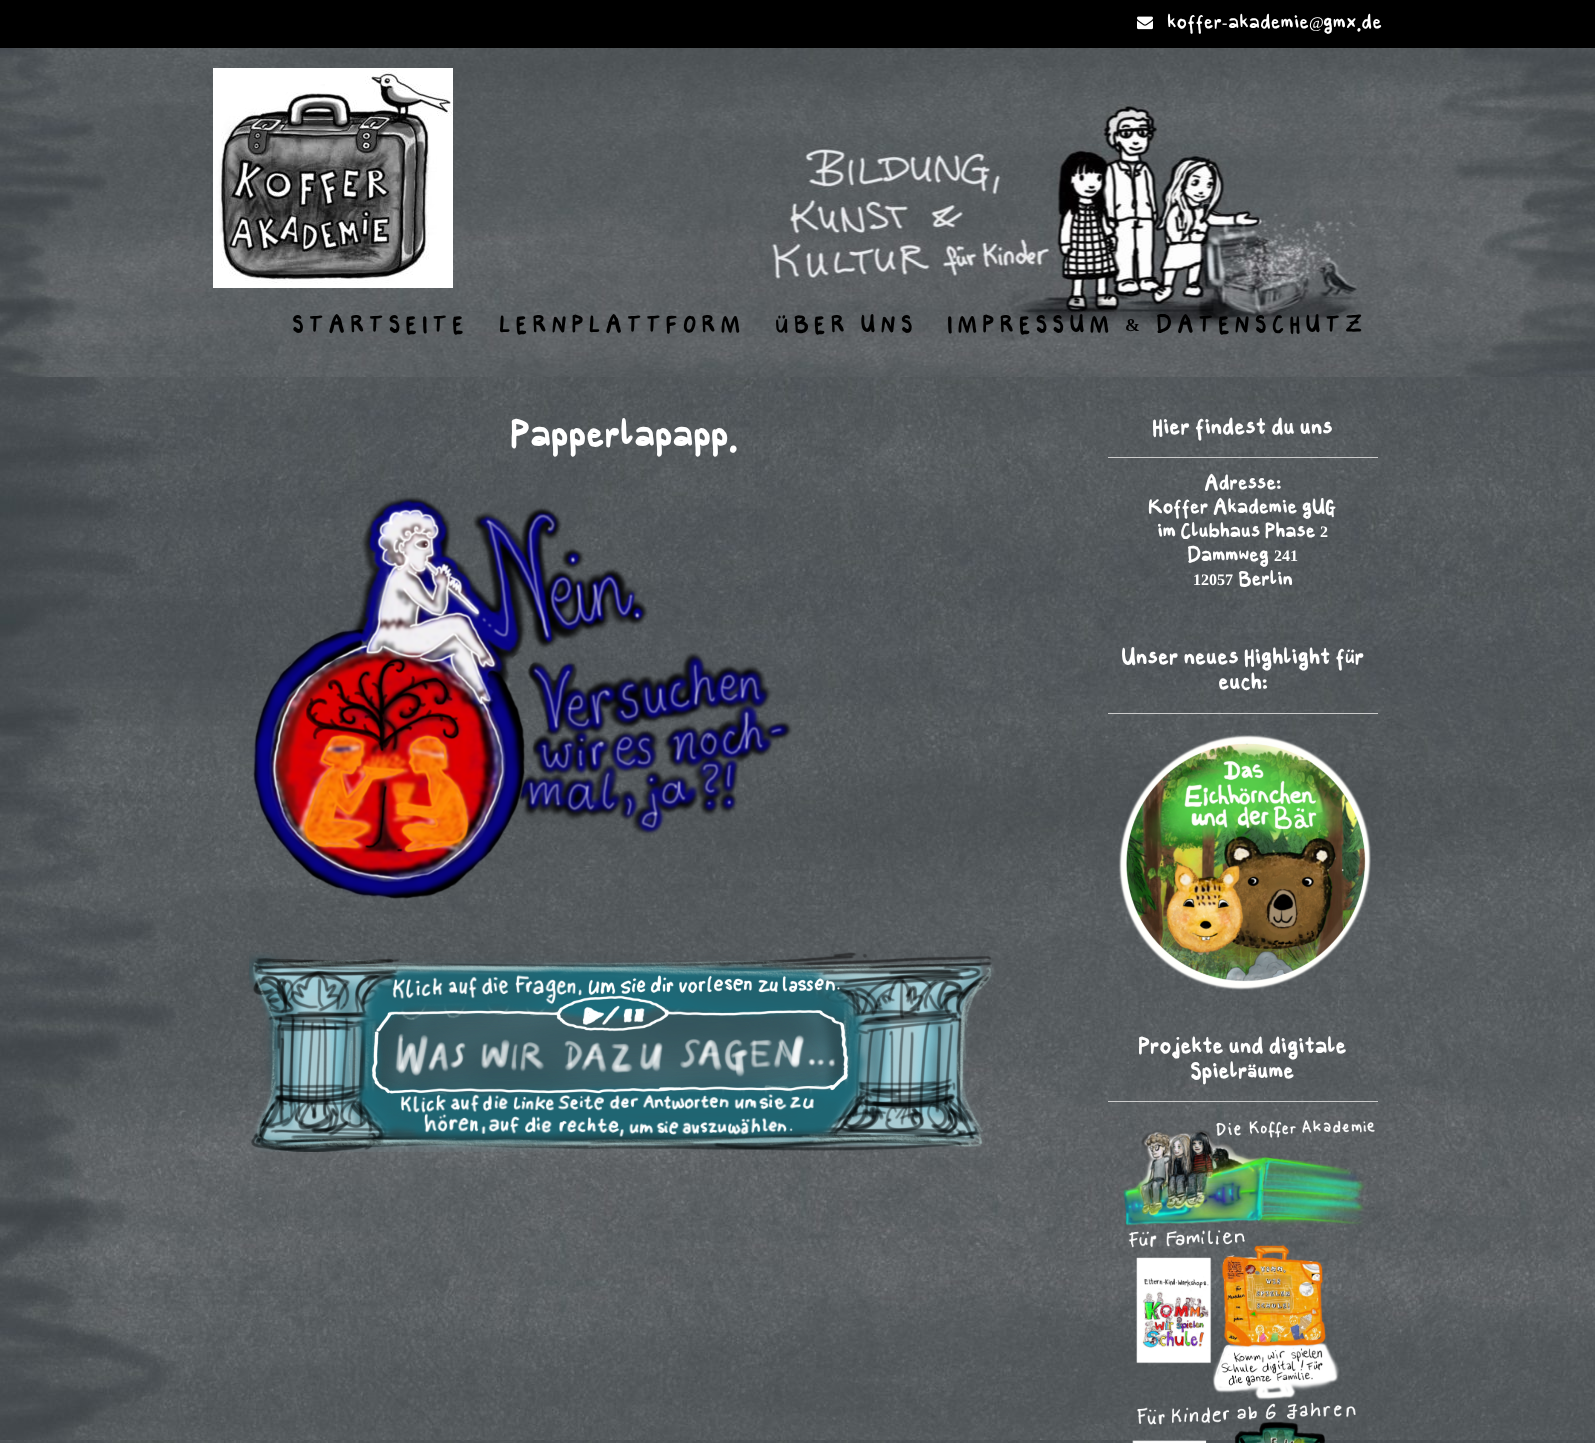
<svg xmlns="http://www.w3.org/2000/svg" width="1595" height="1443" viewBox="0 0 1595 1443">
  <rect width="100%" height="100%" fill="rgb(255,255,255)"/>
  <image x="0" y="377" width="1595" height="1066" href="pic1.png"/>
  <rect x="0" y="0" width="1595" height="48" fill="rgb(0,0,0)"/>
  <image x="1137" y="16" width="16" height="14" href="pic2.png"/>
  <text x="1167" y="28" font-family="'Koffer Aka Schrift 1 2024'" font-size="16" fill="rgb(255,255,255)">koffer</text>
  <text x="1222" y="28" font-family="Liberation Serif" font-size="16" fill="rgb(255,255,255)">-</text>
  <text x="1228" y="28" font-family="'Koffer Aka Schrift 1 2024'" font-size="16" fill="rgb(255,255,255)">akademie</text>
  <text x="1309" y="28" font-family="Liberation Serif" font-size="16" fill="rgb(255,255,255)">@</text>
  <text x="1323" y="28" font-family="'Koffer Aka Schrift 1 2024'" font-size="16" fill="rgb(255,255,255)">gmx.de</text>
  <image x="0" y="48" width="1595" height="329" href="pic3.png"/>
  <image x="213" y="68" width="240" height="220" href="pic4.png"/>
  <g font-family="'Koffer Aka Schrift 1 2024'" font-size="18" font-weight="bold" letter-spacing="5.4" fill="rgb(0,0,0)">
    <text x="292" y="331">STARTSEITE</text>
    <text x="499" y="331">LERNPLATTFORM</text>
    <text x="775" y="331">ÜBER UNS</text>
    <text x="947" y="331">IMPRESSUM</text>
  </g>
  <text x="1125" y="331" font-family="Liberation Serif" font-size="18" font-weight="bold" letter-spacing="5.4" fill="rgb(0,0,0)">&amp;</text>
  <text x="1156" y="331" font-family="'Koffer Aka Schrift 1 2024'" font-size="18" font-weight="bold" letter-spacing="5.4" fill="rgb(0,0,0)">DATENSCHUTZ</text>
  <text x="510" y="446" font-family="'Koffer Aka Schrift 1 2024'" font-size="30" font-weight="bold" fill="rgb(255,255,255)">Papperlapapp.</text>
  <image x="253" y="497" width="539" height="402" href="pic5.png"/>
  <image x="249" y="952" width="745" height="200" href="pic6.png"/>
  <rect x="1108" y="457" width="270" height="1" fill="rgb(204,204,204)"/>
  <text x="1152" y="434" font-family="'Koffer Aka Schrift 1 2024'" font-size="18" font-weight="bold" fill="rgb(255,255,255)">Hier findest du uns</text>
  <g font-family="'Koffer Aka Schrift 1 2024'" font-size="16" font-weight="bold" fill="rgb(255,255,255)">
    <text x="1204" y="489">Adresse:</text>
    <text x="1148" y="513">Koffer Akademie gUG</text>
    <text x="1157" y="537">im Clubhaus Phase</text>
  </g>
  <text x="1320" y="537" font-family="Liberation Serif" font-size="16" font-weight="bold" fill="rgb(255,255,255)">2</text>
  <text x="1187" y="561" font-family="'Koffer Aka Schrift 1 2024'" font-size="16" font-weight="bold" fill="rgb(255,255,255)">Dammweg</text>
  <g font-family="Liberation Serif" font-size="16" font-weight="bold" fill="rgb(255,255,255)">
    <text x="1274" y="561">241</text>
    <text x="1193" y="585">12057</text>
  </g>
  <text x="1238" y="585" font-family="'Koffer Aka Schrift 1 2024'" font-size="16" font-weight="bold" fill="rgb(255,255,255)">Berlin</text>
  <rect x="1108" y="713" width="270" height="1" fill="rgb(204,204,204)"/>
  <g font-family="'Koffer Aka Schrift 1 2024'" font-size="18" font-weight="bold" fill="rgb(255,255,255)">
    <text x="1121" y="664">Unser neues Highlight für</text>
    <text x="1218" y="689">euch:</text>
  </g>
  <image x="1118" y="735" width="253" height="255" href="pic7.png"/>
  <rect x="1108" y="1101" width="270" height="1" fill="rgb(204,204,204)"/>
  <g font-family="'Koffer Aka Schrift 1 2024'" font-size="18" font-weight="bold" fill="rgb(255,255,255)">
    <text x="1138" y="1053">Projekte und digitale</text>
    <text x="1190" y="1078">Spielräume</text>
  </g>
  <image x="1123" y="1120" width="252" height="323" href="pic8.png"/>
</svg>
